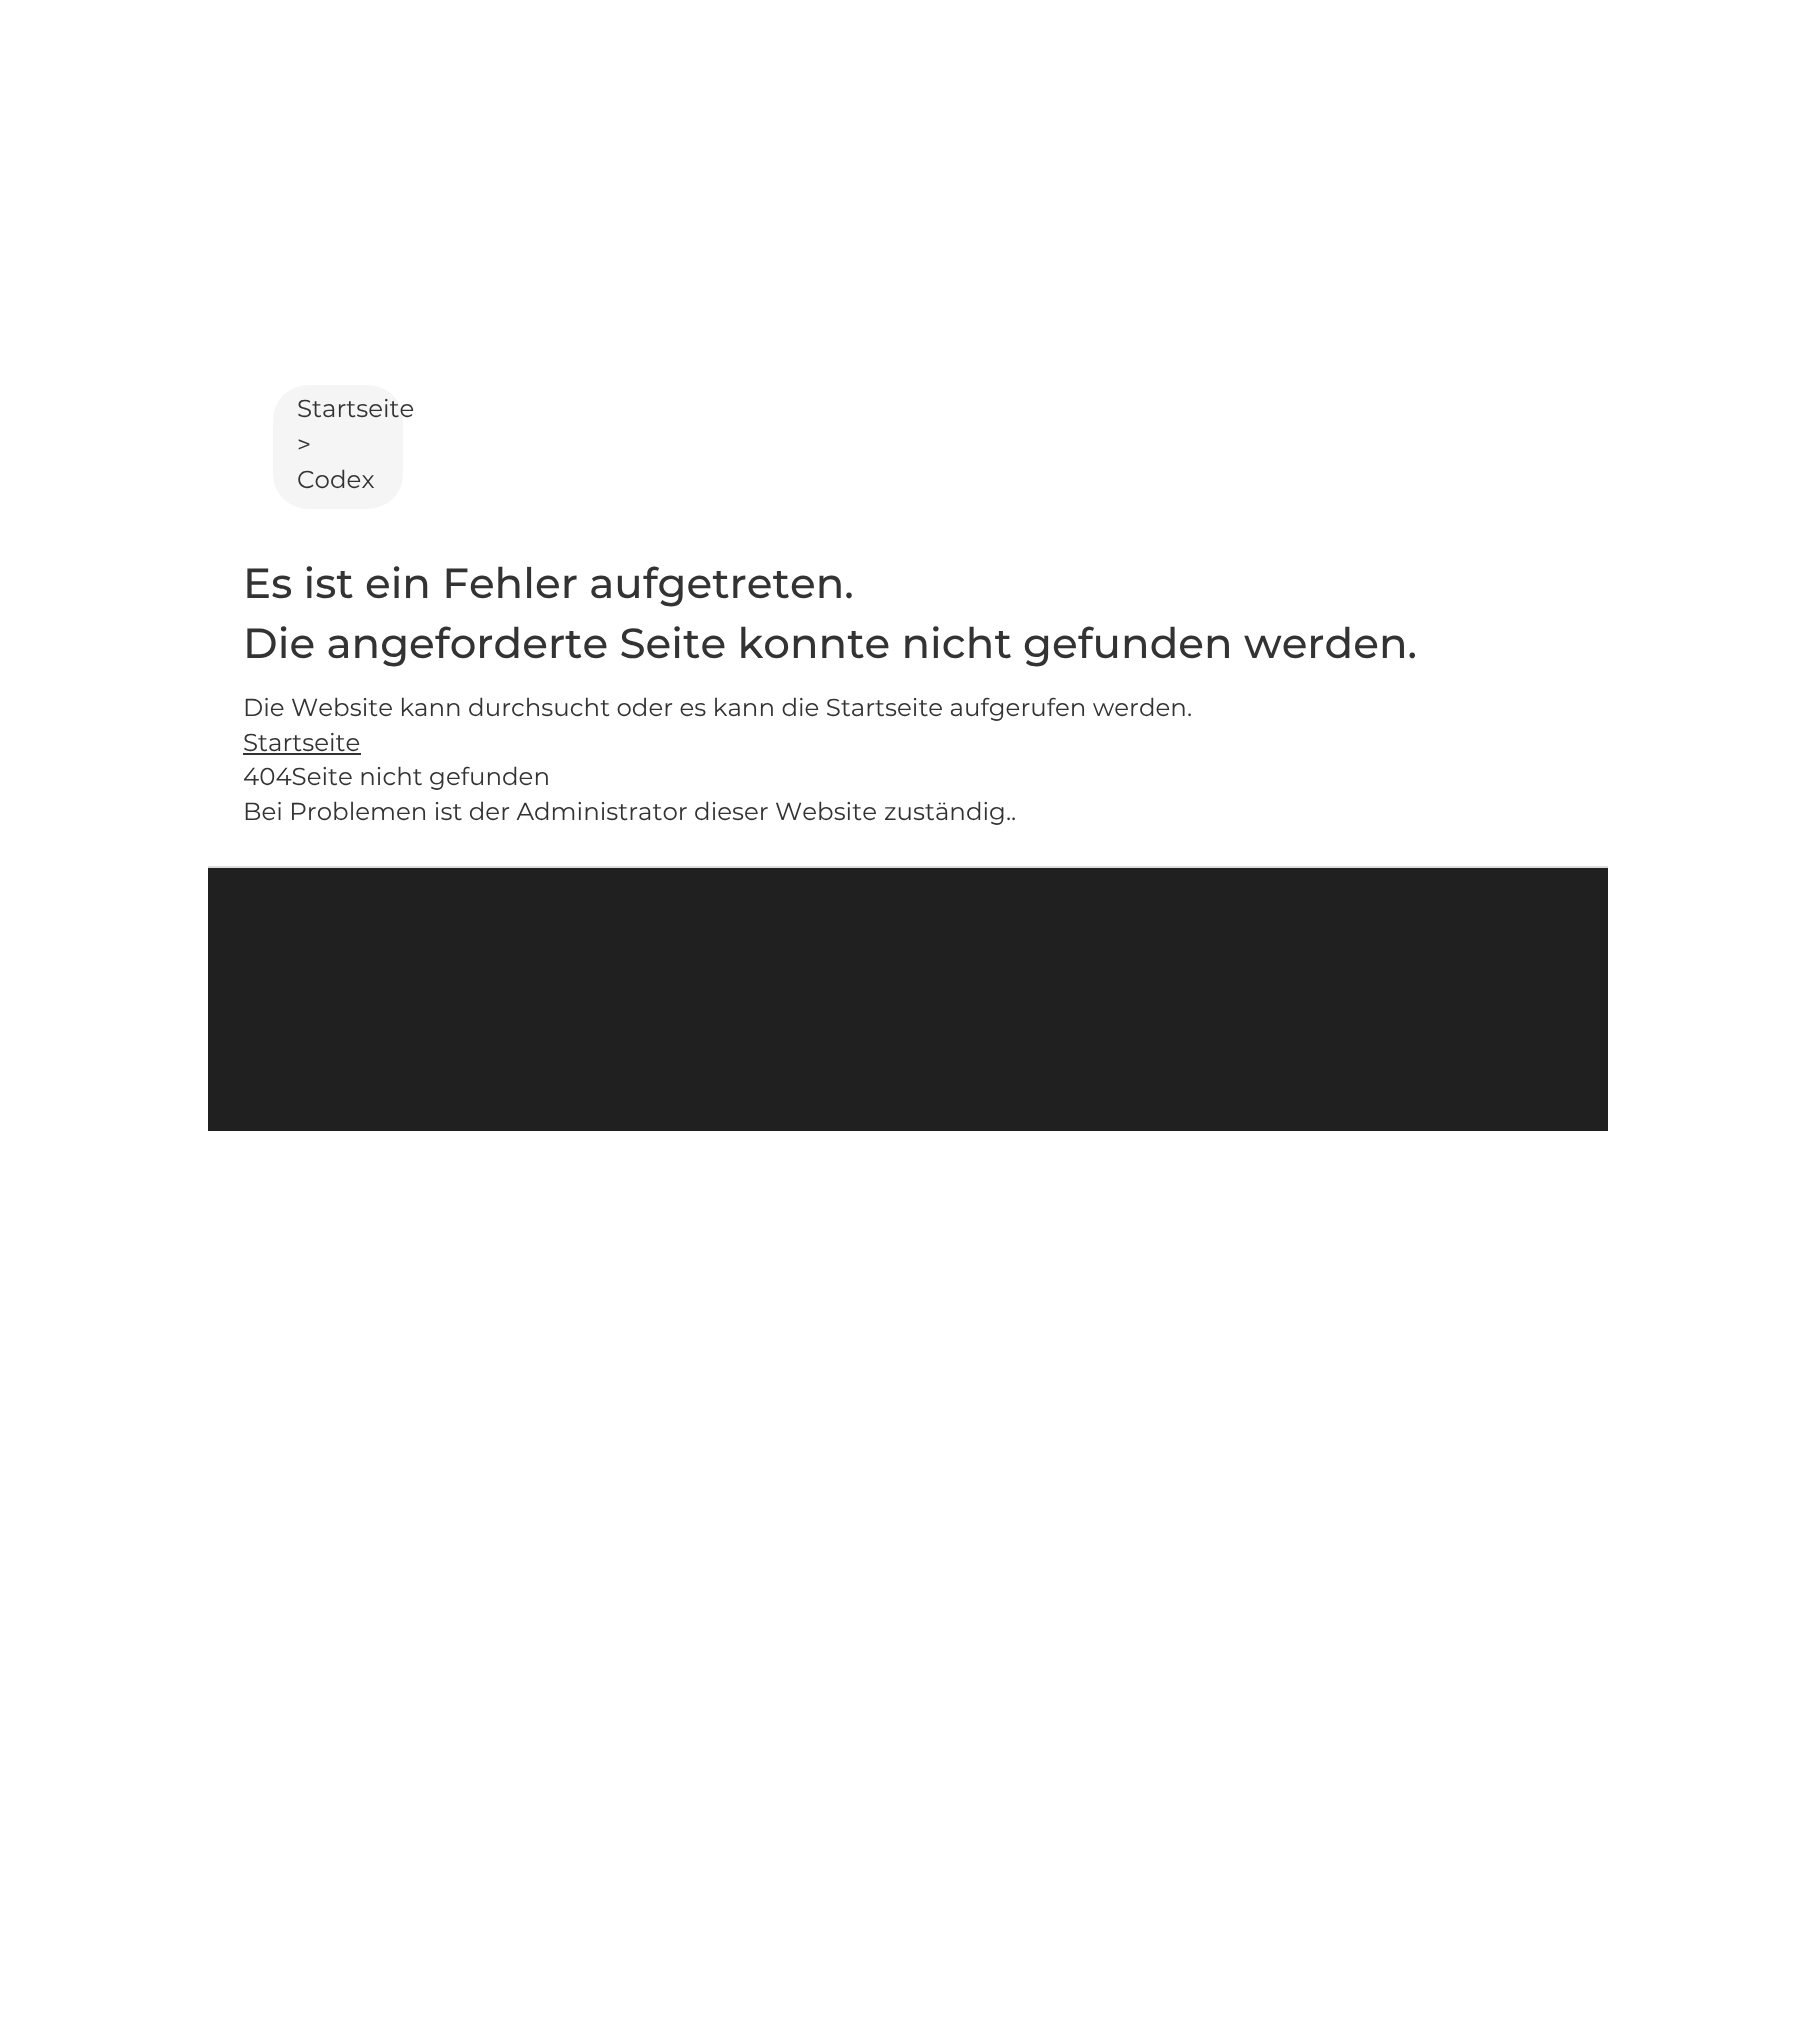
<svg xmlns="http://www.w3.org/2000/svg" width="1816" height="2018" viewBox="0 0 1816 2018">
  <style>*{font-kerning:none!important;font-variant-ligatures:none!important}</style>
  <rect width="100%" height="100%" fill="rgb(255,255,255)"/>
  <rect x="273" y="385" width="130" height="124" rx="35" fill="rgb(245,245,245)"/>
  <g font-family="Montserrat" font-size="24.5" fill="rgb(51,51,51)">
    <text>
      <tspan x="297" y="417">Startseite</tspan>
      <tspan x="297" y="453"> &gt;</tspan>
      <tspan x="297" y="488">Codex</tspan>
    </text>
  </g>
  <g font-family="Montserrat" font-size="42" font-weight="500" fill="rgb(51,51,51)">
    <text>
      <tspan x="243" y="598">Es ist ein Fehler aufgetreten.</tspan>
      <tspan x="243" y="658">Die angeforderte Seite konnte nicht gefunden werden.</tspan>
    </text>
  </g>
  <g font-family="Montserrat" font-size="24.5" fill="rgb(51,51,51)">
    <text>
      <tspan x="243" y="716">Die Website kann durchsucht oder es kann die Startseite aufgerufen werden.</tspan>
      <tspan x="243" y="751">Startseite</tspan>
    </text>
  </g>
  <rect x="243" y="753" width="118" height="2" fill="rgb(51,51,51)"/>
  <g font-family="Montserrat" font-size="24.5" fill="rgb(51,51,51)">
    <text>
      <tspan x="243" y="785">404Seite nicht gefunden</tspan>
      <tspan x="243" y="820">Bei Problemen ist der Administrator dieser Website</tspan>
    </text>
    <text x="884" y="820">zuständig..</text>
  </g>
  <rect x="208" y="868" width="1400" height="263" fill="rgb(32,32,32)"/>
  <rect x="208" y="866" width="1400" height="2" fill="rgb(220,220,220)"/>
</svg>
